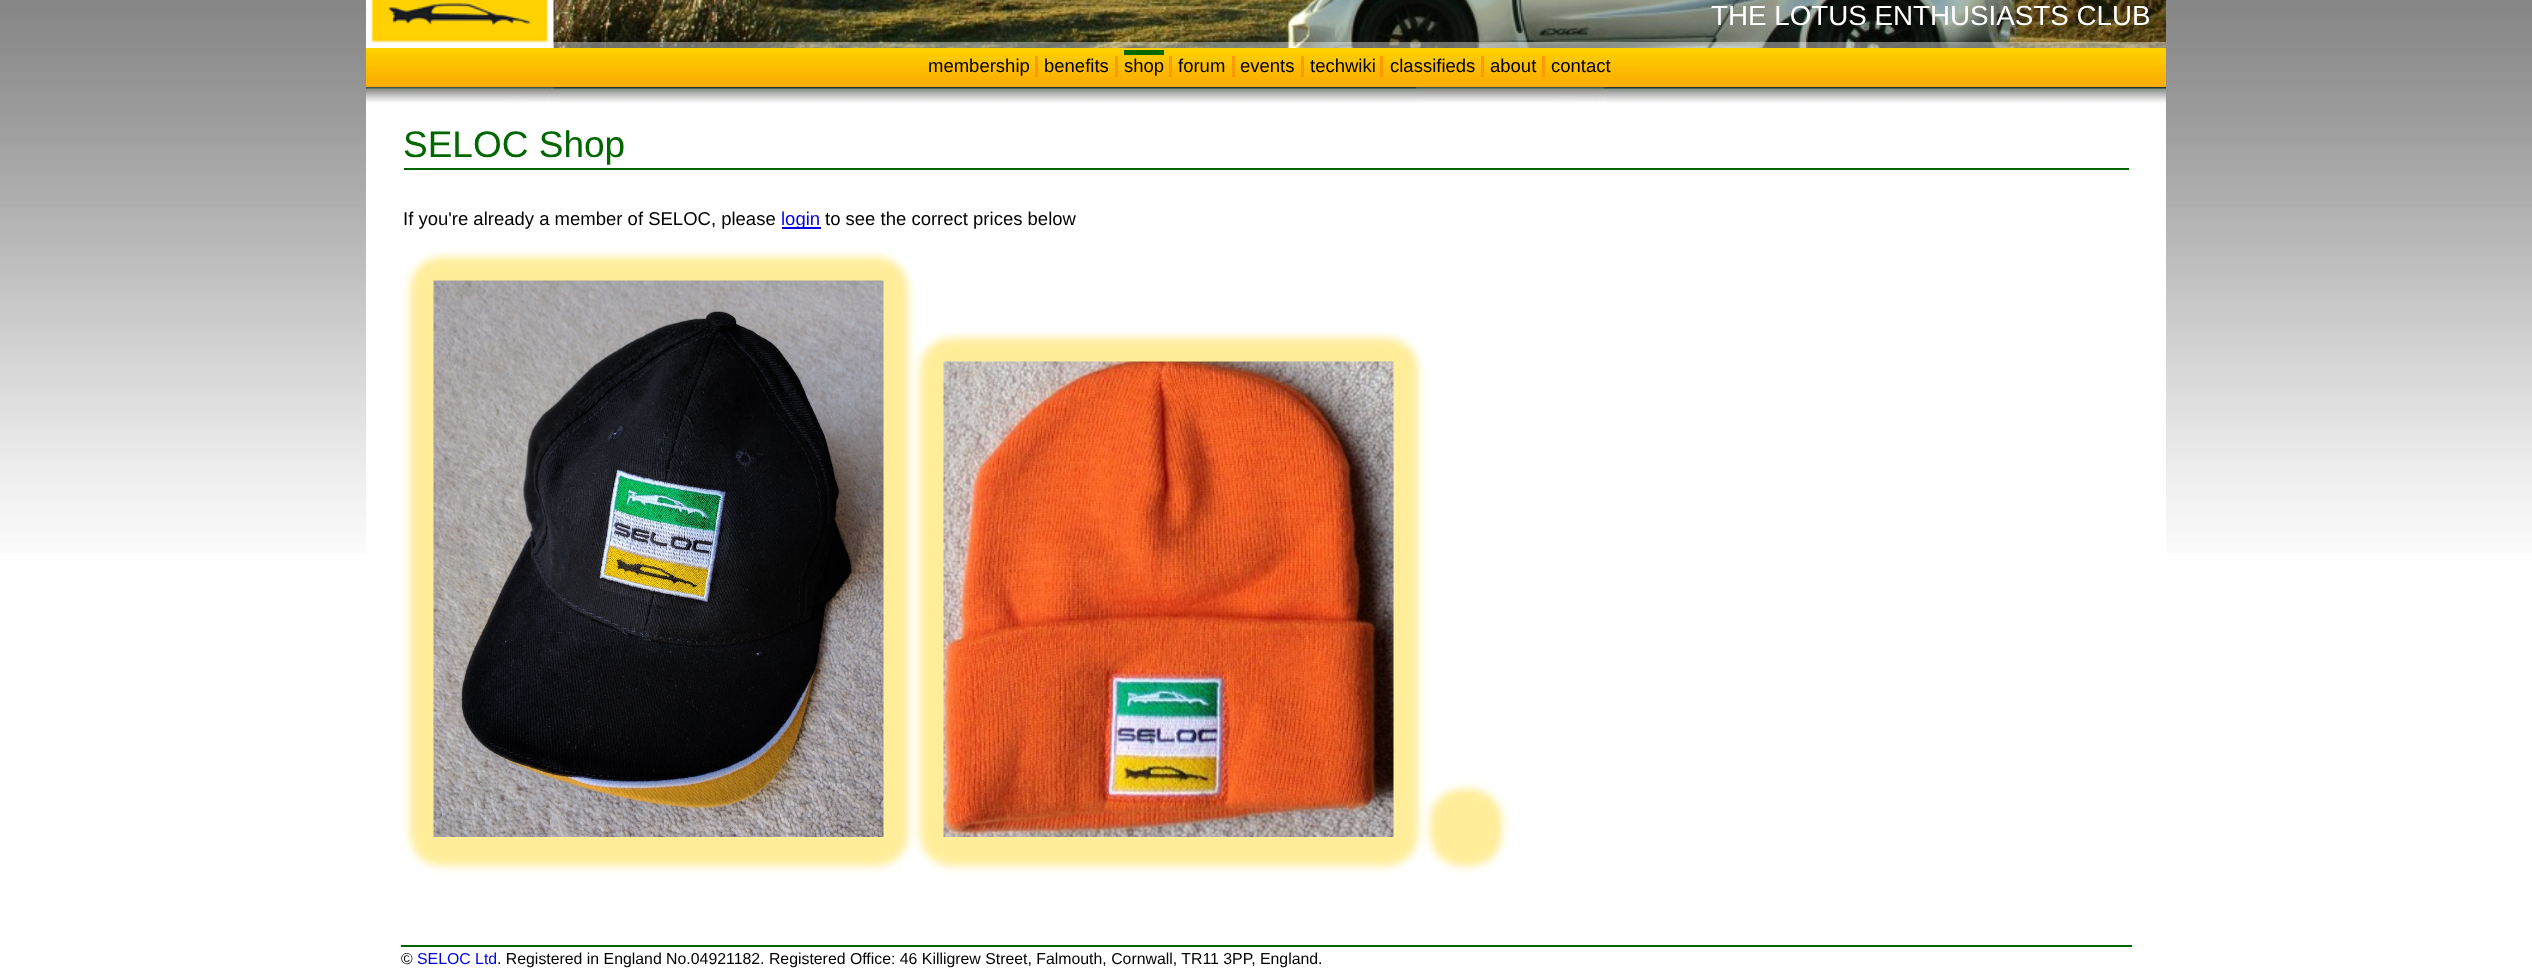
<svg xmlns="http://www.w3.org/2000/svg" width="2532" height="969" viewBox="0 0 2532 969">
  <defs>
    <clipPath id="clip1"><path d="M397 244H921V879H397ZM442 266H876C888.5 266 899 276.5 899 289V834C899 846.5 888.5 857 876 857H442C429.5 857 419 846.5 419 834V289C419 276.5 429.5 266 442 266Z" clip-rule="evenodd"/></clipPath>
    <clipPath id="clip2"><path d="M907 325H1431V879H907ZM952 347H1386C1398.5 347 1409 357.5 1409 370V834C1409 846.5 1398.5 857 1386 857H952C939.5 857 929 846.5 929 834V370C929 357.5 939.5 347 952 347Z" clip-rule="evenodd"/></clipPath>
    <clipPath id="clip3"><path d="M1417 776H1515V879H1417ZM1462 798H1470C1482.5 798 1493 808.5 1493 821V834C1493 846.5 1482.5 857 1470 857H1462C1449.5 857 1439 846.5 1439 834V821C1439 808.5 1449.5 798 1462 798Z" clip-rule="evenodd"/></clipPath>
  </defs>
  <rect width="100%" height="100%" fill="rgb(255,255,255)"/>
  <image x="0" y="0" width="2532" height="553" href="pic1.png"/>
  <rect x="366" y="0" width="5" height="48" fill="rgb(255,255,255)"/>
  <image x="553" y="0" width="1613" height="48" href="pic2.png"/>
  <rect x="366" y="42" width="1800" height="6" fill="rgba(255,255,255,0.4)"/>
  <image x="371" y="0" width="183" height="48" href="pic3.png"/>
  <text x="1711" y="25" font-family="Liberation Sans" font-size="27.75" fill="rgb(255,255,255)">THE LOTUS ENTHUSIASTS CLUB</text>
  <rect x="366" y="85" width="1800" height="2" fill="rgb(250,168,25)"/>
  <image x="366" y="48" width="1800" height="38" href="pic4.png"/>
  <g font-family="Liberation Sans" font-size="18.5" fill="rgb(0,0,0)">
    <text x="928" y="72">membership</text>
    <text x="1044" y="72">benefits</text>
  </g>
  <rect x="1035" y="56" width="3" height="21" fill="rgb(255,153,0)"/>
  <text x="1124" y="72" font-family="Liberation Sans" font-size="18.5" fill="rgb(0,0,0)">shop</text>
  <rect x="1115" y="56" width="3" height="21" fill="rgb(255,153,0)"/>
  <rect x="1124" y="50" width="40" height="5" fill="rgb(0,102,0)"/>
  <text x="1178" y="72" font-family="Liberation Sans" font-size="18.5" fill="rgb(0,0,0)">forum</text>
  <rect x="1169" y="56" width="3" height="21" fill="rgb(255,153,0)"/>
  <text x="1240" y="72" font-family="Liberation Sans" font-size="18.5" fill="rgb(0,0,0)">events</text>
  <rect x="1232" y="56" width="3" height="21" fill="rgb(255,153,0)"/>
  <text x="1310" y="72" font-family="Liberation Sans" font-size="18.5" fill="rgb(0,0,0)">techwiki</text>
  <rect x="1301" y="56" width="3" height="21" fill="rgb(255,153,0)"/>
  <text x="1390" y="72" font-family="Liberation Sans" font-size="18.5" fill="rgb(0,0,0)">classifieds</text>
  <rect x="1380" y="56" width="3" height="21" fill="rgb(255,153,0)"/>
  <text x="1490" y="72" font-family="Liberation Sans" font-size="18.5" fill="rgb(0,0,0)">about</text>
  <rect x="1481" y="56" width="3" height="21" fill="rgb(255,153,0)"/>
  <text x="1551" y="72" font-family="Liberation Sans" font-size="18.5" fill="rgb(0,0,0)">contact</text>
  <rect x="1542" y="56" width="3" height="21" fill="rgb(255,153,0)"/>
  <rect x="366" y="104" width="1800" height="449" fill="rgb(255,255,255)"/>
  <image x="366" y="87" width="1800" height="17" href="pic5.png"/>
  <rect x="404" y="168" width="1725" height="2" fill="rgb(0,102,0)"/>
  <text x="403" y="157" font-family="Liberation Sans" font-size="37" fill="rgb(0,102,0)">SELOC Shop</text>
  <text x="403" y="225" font-family="Liberation Sans" font-size="18.5" fill="rgb(0,0,0)">If you're already a member of SELOC, please</text>
  <rect x="782" y="227" width="39" height="2" fill="rgb(0,0,238)"/>
  <text x="781" y="225" font-family="Liberation Sans" font-size="18.5" fill="rgb(0,0,238)">login</text>
  <text x="825" y="225" font-family="Liberation Sans" font-size="18.5" fill="rgb(0,0,0)">to see the correct prices below</text>
  <g clip-path="url(#clip1)">
    <rect x="410" y="257" width="498" height="609" rx="32" fill="rgba(255,209,0,0.4)" filter="blur(4px)"/>
  </g>
  <rect x="419" y="266" width="480" height="591" rx="23" fill="rgba(255,209,0,0.4)"/>
  <image x="433" y="280" width="451" height="557" href="pic6.png"/>
  <g clip-path="url(#clip2)">
    <rect x="920" y="338" width="498" height="528" rx="32" fill="rgba(255,209,0,0.4)" filter="blur(4px)"/>
  </g>
  <rect x="929" y="347" width="480" height="510" rx="23" fill="rgba(255,209,0,0.4)"/>
  <image x="943" y="361" width="451" height="476" href="pic7.png"/>
  <g clip-path="url(#clip3)">
    <rect x="1430" y="789" width="72" height="77" rx="32" fill="rgba(255,209,0,0.4)" filter="blur(4px)"/>
  </g>
  <rect x="1439" y="798" width="54" height="59" rx="23" fill="rgba(255,209,0,0.4)"/>
  <rect x="401" y="945" width="1731" height="2" fill="rgb(0,102,0)"/>
  <text x="401" y="964" font-family="Liberation Sans" font-size="15.85" fill="rgb(0,0,0)">©</text>
  <text x="417" y="964" font-family="Liberation Sans" font-size="15.85" fill="rgb(0,0,238)">SELOC Ltd</text>
  <text x="497" y="964" font-family="Liberation Sans" font-size="15.85" fill="rgb(0,0,0)">. Registered in England No.04921182. Registered Office: 46 Killigrew Street, Falmouth, Cornwall, TR11 3PP, England.</text>
</svg>
